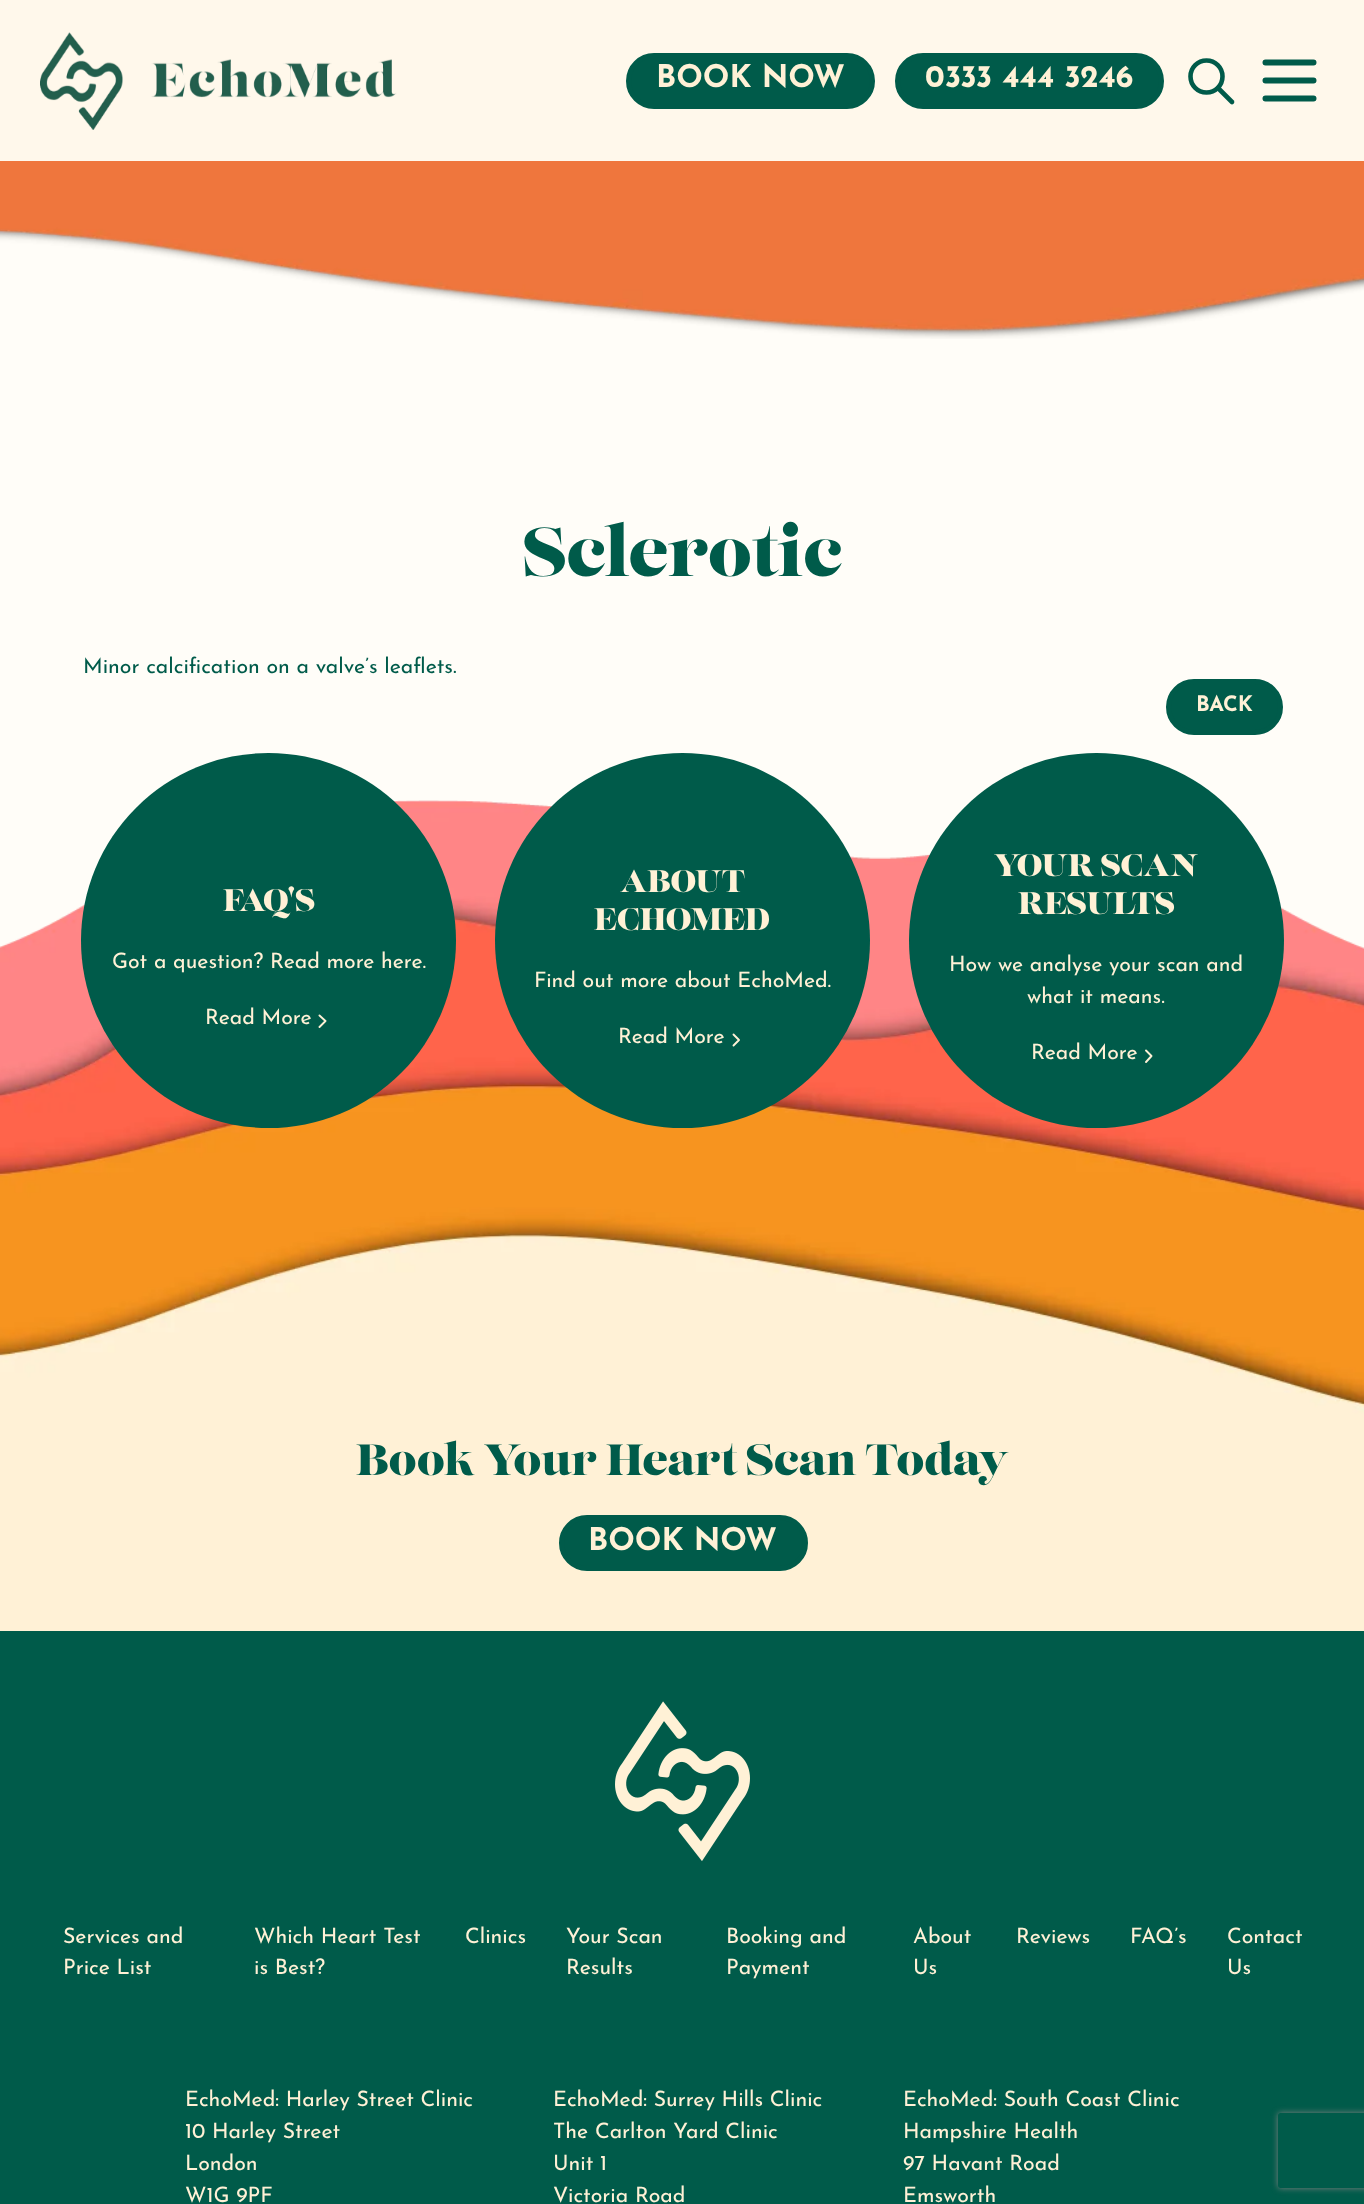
<svg xmlns="http://www.w3.org/2000/svg" width="1364" height="2204" viewBox="0 0 1364 2204">
  <defs>
    <clipPath id="clip1"><path d="M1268 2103H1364V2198H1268ZM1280.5 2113H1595.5C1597 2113 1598 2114 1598 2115.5V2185.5C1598 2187 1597 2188 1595.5 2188H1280.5C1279 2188 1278 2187 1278 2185.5V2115.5C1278 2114 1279 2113 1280.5 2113Z" clip-rule="evenodd"/></clipPath>
  </defs>
  <rect width="100%" height="100%" fill="rgb(255,253,248)"/>
  <rect x="0" y="0" width="1364" height="161" fill="rgb(255,248,235)"/>
  <image x="40" y="32" width="357" height="98" href="pic1.png"/>
  <rect x="628.5" y="55.5" width="244" height="51" rx="25.5" fill="rgb(0,91,74)" stroke="rgb(0,91,74)" stroke-width="5"/>
  <text x="656" y="87" font-family="Josefin Sans" font-size="31.25" font-weight="bold" fill="rgb(255,241,214)">BOOK NOW</text>
  <rect x="897.5" y="55.5" width="264" height="51" rx="25.5" fill="rgb(0,91,74)" stroke="rgb(0,91,74)" stroke-width="5"/>
  <text x="925" y="87" font-family="Josefin Sans" font-size="31.25" font-weight="bold" fill="rgb(255,241,214)">0333 444 3246</text>
  <circle cx="1206.5" cy="76.5" r="16" fill="none" stroke="rgb(0,91,74)" stroke-width="4.6"/>
  <path d="M1232 102L1218 88" fill="none" stroke="rgb(0,91,74)" stroke-width="4.6" stroke-linecap="round" stroke-linejoin="round"/>
  <path d="M1265.5 62.5H1313.5M1265.5 80.5H1313.5M1265.5 98.5H1313.5" fill="none" stroke="rgb(0,91,74)" stroke-width="6" stroke-linecap="round" stroke-linejoin="round"/>
  <image x="0" y="161" width="1364" height="178" href="pic2.png"/>
  <text x="523" y="576" font-family="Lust" font-size="68.75" fill="rgb(0,91,74)">Sclerotic</text>
  <text x="83" y="673" font-family="Josefin Sans" font-size="21.25" fill="rgb(0,91,74)">Minor calcification on a valve’s leaflets.</text>
  <rect x="1168.5" y="681.5" width="112" height="51" rx="25.5" fill="rgb(0,91,74)" stroke="rgb(0,91,74)" stroke-width="5"/>
  <text x="1196" y="711" font-family="Josefin Sans" font-size="21.25" font-weight="bold" fill="rgb(255,241,214)">BACK</text>
  <image x="0" y="800" width="1364" height="831" href="pic3.png"/>
  <circle cx="268.5" cy="940.5" r="187.5" fill="rgb(0,91,74)"/>
  <text x="223" y="911" font-family="Lust" font-size="31.25" fill="rgb(255,241,214)">FAQ'S</text>
  <g font-family="Josefin Sans" font-size="21.25" fill="rgb(255,241,214)">
    <text x="112" y="968">Got a question? Read more here.</text>
    <text x="205" y="1024">Read More</text>
  </g>
  <path d="M319.5 1015.5L325.5 1021L319.5 1027" fill="none" stroke="rgb(255,241,214)" stroke-width="1.9" stroke-linecap="round" stroke-linejoin="round"/>
  <circle cx="682.5" cy="940.5" r="187.5" fill="rgb(0,91,74)"/>
  <g font-family="Lust" font-size="31.25" fill="rgb(255,241,214)">
    <text x="620" y="892">ABOUT</text>
    <text x="594" y="930">ECHOMED</text>
  </g>
  <g font-family="Josefin Sans" font-size="21.25" fill="rgb(255,241,214)">
    <text x="534" y="987">Find out more about EchoMed.</text>
    <text x="618" y="1043">Read More</text>
  </g>
  <path d="M733.5 1034.5L739 1040L733.5 1045.5" fill="none" stroke="rgb(255,241,214)" stroke-width="1.9" stroke-linecap="round" stroke-linejoin="round"/>
  <circle cx="1096.5" cy="940.5" r="187.5" fill="rgb(0,91,74)"/>
  <g font-family="Lust" font-size="31.25" fill="rgb(255,241,214)">
    <text x="994" y="876">YOUR SCAN</text>
    <text x="1018" y="914">RESULTS</text>
  </g>
  <g font-family="Josefin Sans" font-size="21.25" fill="rgb(255,241,214)">
    <text x="949" y="971">How we analyse your scan and</text>
    <text x="1027" y="1003">what it means.</text>
    <text x="1031" y="1059">Read More</text>
  </g>
  <path d="M1146 1050.5L1151.5 1056L1146 1062" fill="none" stroke="rgb(255,241,214)" stroke-width="1.9" stroke-linecap="round" stroke-linejoin="round"/>
  <text x="356" y="1475" font-family="Lust" font-size="43.75" fill="rgb(0,91,74)">Book Your Heart Scan Today</text>
  <rect x="561.5" y="1517.5" width="244" height="51" rx="25.5" fill="rgb(0,91,74)" stroke="rgb(0,91,74)" stroke-width="5"/>
  <text x="588" y="1550" font-family="Josefin Sans" font-size="31.25" font-weight="bold" fill="rgb(255,241,214)">BOOK NOW</text>
  <rect x="0" y="1631" width="1364" height="573" fill="rgb(0,91,74)"/>
  <image x="615" y="1701" width="135" height="160" href="pic4.png"/>
  <g font-family="Josefin Sans" font-size="21.25" fill="rgb(255,241,214)">
    <text>
      <tspan x="63" y="1943">Services and</tspan>
      <tspan x="63" y="1974">Price List</tspan>
    </text>
    <text>
      <tspan x="254" y="1943">Which Heart Test</tspan>
      <tspan x="254" y="1974">is Best?</tspan>
    </text>
    <text x="465" y="1943">Clinics</text>
    <text>
      <tspan x="566" y="1943">Your Scan</tspan>
      <tspan x="566" y="1974">Results</tspan>
    </text>
    <text>
      <tspan x="726" y="1943">Booking and</tspan>
      <tspan x="726" y="1974">Payment</tspan>
    </text>
    <text>
      <tspan x="913" y="1943">About</tspan>
      <tspan x="913" y="1974">Us</tspan>
    </text>
    <text x="1016" y="1943">Reviews</text>
    <text x="1130" y="1943">FAQ’s</text>
    <text>
      <tspan x="1227" y="1943">Contact</tspan>
      <tspan x="1227" y="1974">Us</tspan>
    </text>
    <text>
      <tspan x="185" y="2106">EchoMed: Harley Street Clinic</tspan>
      <tspan x="185" y="2138">10 Harley Street</tspan>
      <tspan x="185" y="2170">London</tspan>
      <tspan x="185" y="2202">W1G 9PF</tspan>
    </text>
    <text>
      <tspan x="553" y="2106">EchoMed: Surrey Hills Clinic</tspan>
      <tspan x="553" y="2138">The Carlton Yard Clinic</tspan>
      <tspan x="553" y="2170">Unit 1</tspan>
      <tspan x="553" y="2202">Victoria Road</tspan>
    </text>
    <text>
      <tspan x="903" y="2106">EchoMed: South Coast Clinic</tspan>
      <tspan x="903" y="2138">Hampshire Health</tspan>
      <tspan x="903" y="2170">97 Havant Road</tspan>
      <tspan x="903" y="2202">Emsworth</tspan>
    </text>
  </g>
  <g clip-path="url(#clip1)">
    <rect x="1278" y="2113" width="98" height="75" rx="2.5" fill="rgb(128,128,128)" filter="blur(3px)"/>
  </g>
</svg>
